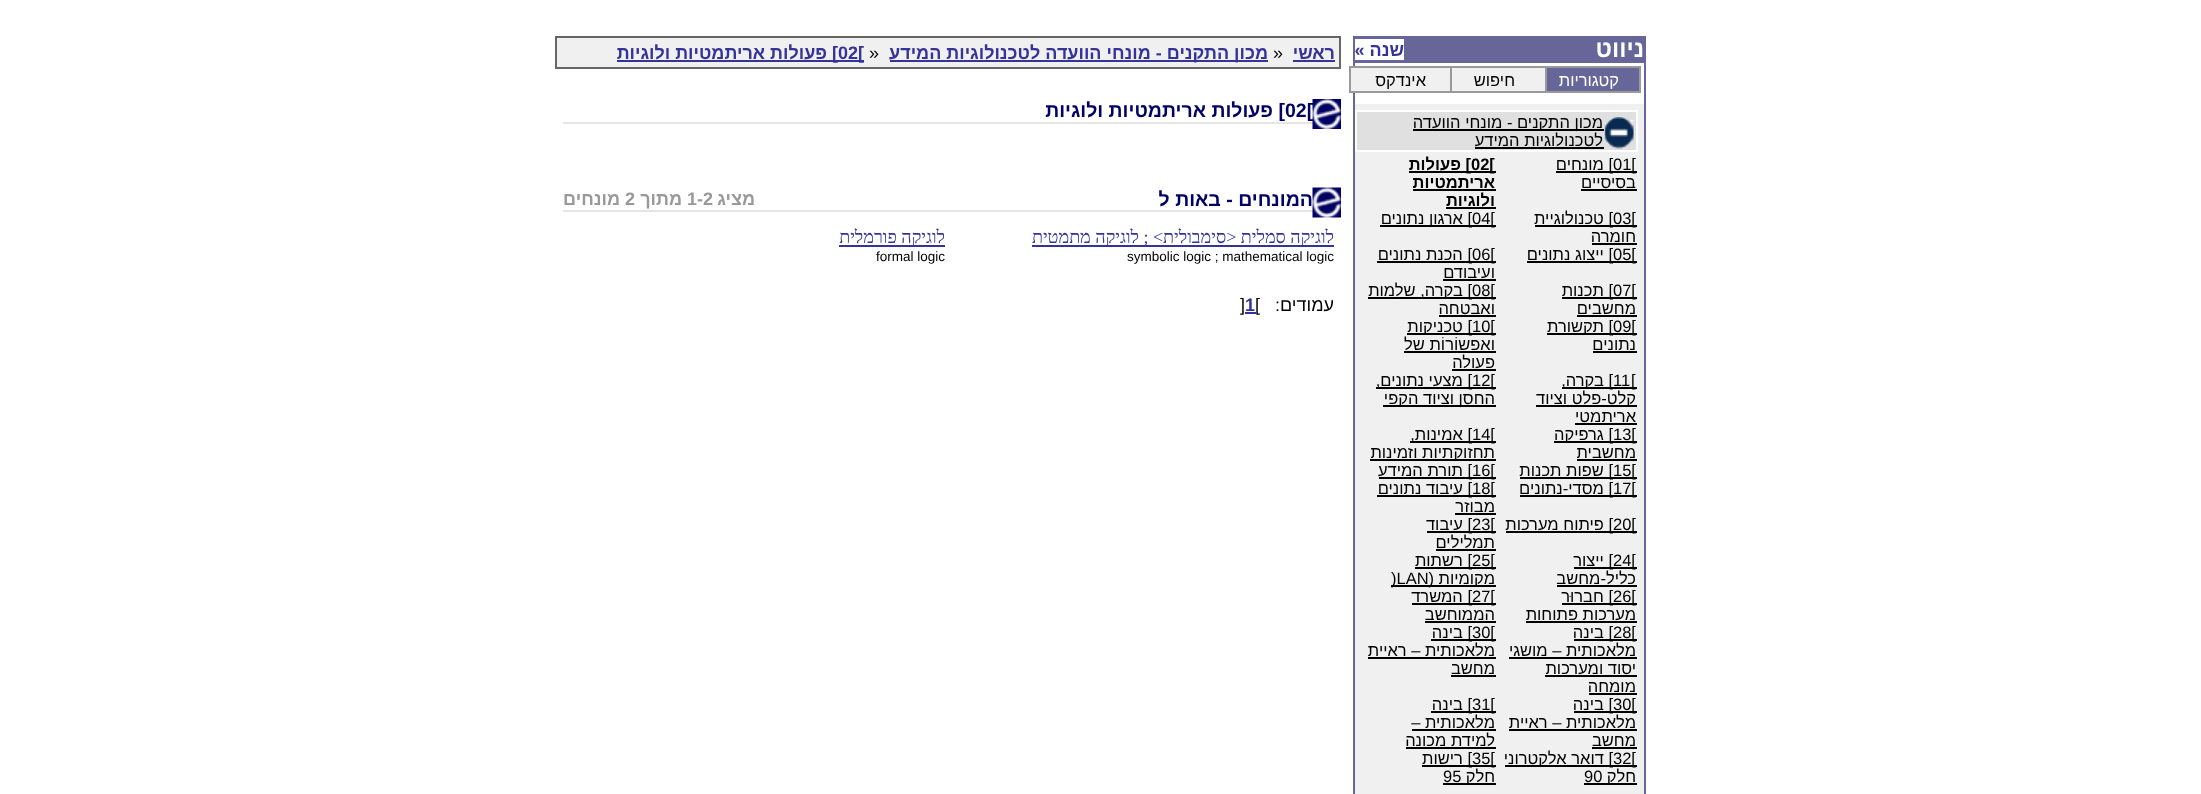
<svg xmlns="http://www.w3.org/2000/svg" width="2201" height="794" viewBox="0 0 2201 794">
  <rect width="100%" height="100%" fill="rgb(255,255,255)"/>
  <rect x="1644" y="36" width="2" height="758" fill="rgb(102,102,153)"/>
  <rect x="1353" y="36" width="291" height="27" fill="rgb(102,102,153)"/>
  <text x="1644" y="57" font-family="Liberation Sans" font-size="24" font-weight="bold" direction="rtl" fill="rgb(255,255,255)">ניווט</text>
  <rect x="1355" y="39" width="49" height="21" fill="rgb(255,255,255)"/>
  <text x="1404" y="56" font-family="Liberation Sans" font-size="18" font-weight="bold" direction="rtl" fill="rgb(51,51,153)">שנה »</text>
  <rect x="1547" y="68" width="92" height="23" fill="rgb(102,102,153)"/>
  <rect x="1539" y="67" width="101" height="25" fill="none" stroke="rgb(153,153,153)" stroke-width="2"/>
  <text x="1619" y="86" font-family="Liberation Sans" font-size="16.5" direction="rtl" fill="rgb(255,255,255)">קטגוריות</text>
  <rect x="1452" y="68" width="93" height="23" fill="rgb(240,240,240)"/>
  <rect x="1444" y="67" width="102" height="25" fill="none" stroke="rgb(153,153,153)" stroke-width="2"/>
  <text x="1515" y="86" font-family="Liberation Sans" font-size="16.5" direction="rtl" fill="rgb(0,0,0)">חיפוש</text>
  <rect x="1353" y="63" width="2" height="731" fill="rgb(102,102,153)"/>
  <rect x="1350" y="67" width="101" height="25" fill="rgb(240,240,240)" stroke="rgb(153,153,153)" stroke-width="2"/>
  <text x="1426" y="86" font-family="Liberation Sans" font-size="16.5" direction="rtl" fill="rgb(0,0,0)">אינדקס</text>
  <rect x="1355" y="104" width="289" height="690" fill="rgb(240,240,240)"/>
  <rect x="1356" y="111" width="281" height="40" fill="rgb(224,224,224)" stroke="rgb(255,255,255)" stroke-width="2"/>
  <image x="1604" y="117" width="30" height="32" href="pic1.png"/>
  <rect x="1413" y="129" width="191" height="2" fill="rgb(0,0,0)"/>
  <g font-family="Liberation Sans" font-size="16.5" direction="rtl" fill="rgb(0,0,0)">
    <text>
      <tspan x="1603" y="128">מכון התקנים - מונחי הוועדה</tspan>
      <tspan x="1603" y="146">לטכנולוגיות המידע</tspan>
    </text>
  </g>
  <rect x="1475" y="147" width="129" height="2" fill="rgb(0,0,0)"/>
  <rect x="1556" y="171" width="81" height="2" fill="rgb(0,0,0)"/>
  <text x="1613" y="170" font-family="Liberation Sans" font-size="16.5" fill="rgb(0,0,0)">01[</text>
  <g font-family="Liberation Sans" font-size="16.5" direction="rtl" fill="rgb(0,0,0)">
    <text x="1613" y="170">] מונחים</text>
    <text x="1636" y="188">בסיסיים</text>
  </g>
  <rect x="1581" y="189" width="56" height="2" fill="rgb(0,0,0)"/>
  <rect x="1409" y="171" width="87" height="2" fill="rgb(0,0,0)"/>
  <text x="1471" y="170" font-family="Liberation Sans" font-size="16.5" font-weight="bold" fill="rgb(0,0,0)">02[</text>
  <g font-family="Liberation Sans" font-size="16.5" font-weight="bold" direction="rtl" fill="rgb(0,0,0)">
    <text x="1471" y="170">] פעולות</text>
    <text x="1495" y="188">אריתמטיות</text>
  </g>
  <rect x="1413" y="189" width="83" height="2" fill="rgb(0,0,0)"/>
  <text x="1495" y="206" font-family="Liberation Sans" font-size="16.5" font-weight="bold" direction="rtl" fill="rgb(0,0,0)">ולוגיות</text>
  <rect x="1446" y="207" width="50" height="2" fill="rgb(0,0,0)"/>
  <rect x="1535" y="225" width="102" height="2" fill="rgb(0,0,0)"/>
  <text x="1613" y="224" font-family="Liberation Sans" font-size="16.5" fill="rgb(0,0,0)">03[</text>
  <g font-family="Liberation Sans" font-size="16.5" direction="rtl" fill="rgb(0,0,0)">
    <text x="1613" y="224">] טכנולוגיית</text>
    <text x="1636" y="242">חומרה</text>
  </g>
  <rect x="1592" y="243" width="45" height="2" fill="rgb(0,0,0)"/>
  <rect x="1380" y="225" width="116" height="2" fill="rgb(0,0,0)"/>
  <text x="1472" y="224" font-family="Liberation Sans" font-size="16.5" fill="rgb(0,0,0)">04[</text>
  <text x="1472" y="224" font-family="Liberation Sans" font-size="16.5" direction="rtl" fill="rgb(0,0,0)">] ארגון נתונים</text>
  <rect x="1527" y="261" width="110" height="2" fill="rgb(0,0,0)"/>
  <text x="1613" y="260" font-family="Liberation Sans" font-size="16.5" fill="rgb(0,0,0)">05[</text>
  <text x="1613" y="260" font-family="Liberation Sans" font-size="16.5" direction="rtl" fill="rgb(0,0,0)">] ייצוג נתונים</text>
  <rect x="1377" y="261" width="119" height="2" fill="rgb(0,0,0)"/>
  <text x="1472" y="260" font-family="Liberation Sans" font-size="16.5" fill="rgb(0,0,0)">06[</text>
  <g font-family="Liberation Sans" font-size="16.5" direction="rtl" fill="rgb(0,0,0)">
    <text x="1472" y="260">] הכנת נתונים</text>
    <text x="1495" y="278">ועיבודם</text>
  </g>
  <rect x="1443" y="279" width="53" height="2" fill="rgb(0,0,0)"/>
  <rect x="1562" y="297" width="75" height="2" fill="rgb(0,0,0)"/>
  <text x="1613" y="296" font-family="Liberation Sans" font-size="16.5" fill="rgb(0,0,0)">07[</text>
  <g font-family="Liberation Sans" font-size="16.5" direction="rtl" fill="rgb(0,0,0)">
    <text x="1613" y="296">] תכנות</text>
    <text x="1636" y="314">מחשבים</text>
  </g>
  <rect x="1577" y="315" width="60" height="2" fill="rgb(0,0,0)"/>
  <rect x="1368" y="297" width="128" height="2" fill="rgb(0,0,0)"/>
  <text x="1472" y="296" font-family="Liberation Sans" font-size="16.5" fill="rgb(0,0,0)">08[</text>
  <g font-family="Liberation Sans" font-size="16.5" direction="rtl" fill="rgb(0,0,0)">
    <text x="1472" y="296">] בקרה, שלמות</text>
    <text x="1495" y="314">ואבטחה</text>
  </g>
  <rect x="1439" y="315" width="57" height="2" fill="rgb(0,0,0)"/>
  <rect x="1547" y="333" width="90" height="2" fill="rgb(0,0,0)"/>
  <text x="1613" y="332" font-family="Liberation Sans" font-size="16.5" fill="rgb(0,0,0)">09[</text>
  <g font-family="Liberation Sans" font-size="16.5" direction="rtl" fill="rgb(0,0,0)">
    <text x="1613" y="332">] תקשורת</text>
    <text x="1636" y="350">נתונים</text>
  </g>
  <rect x="1593" y="351" width="44" height="2" fill="rgb(0,0,0)"/>
  <rect x="1407" y="333" width="89" height="2" fill="rgb(0,0,0)"/>
  <text x="1472" y="332" font-family="Liberation Sans" font-size="16.5" fill="rgb(0,0,0)">10[</text>
  <text x="1472" y="332" font-family="Liberation Sans" font-size="16.5" direction="rtl" fill="rgb(0,0,0)">] טכניקות</text>
  <rect x="1404" y="351" width="92" height="2" fill="rgb(0,0,0)"/>
  <g font-family="Liberation Sans" font-size="16.5" direction="rtl" fill="rgb(0,0,0)">
    <text>
      <tspan x="1495" y="350">ואַפשוֹרוֹת של</tspan>
      <tspan x="1495" y="368">פעולה</tspan>
    </text>
  </g>
  <rect x="1452" y="369" width="44" height="2" fill="rgb(0,0,0)"/>
  <rect x="1562" y="387" width="75" height="2" fill="rgb(0,0,0)"/>
  <g font-family="Liberation Sans" font-size="16.5" fill="rgb(0,0,0)">
    <text x="1631" y="386">[</text>
    <text x="1613" y="386">11</text>
  </g>
  <text x="1613" y="386" font-family="Liberation Sans" font-size="16.5" direction="rtl" fill="rgb(0,0,0)">] בקרה,</text>
  <rect x="1536" y="405" width="101" height="2" fill="rgb(0,0,0)"/>
  <g font-family="Liberation Sans" font-size="16.5" direction="rtl" fill="rgb(0,0,0)">
    <text>
      <tspan x="1636" y="404">קלט-פלט וציוד</tspan>
      <tspan x="1636" y="422">אריתמטי</tspan>
    </text>
  </g>
  <rect x="1575" y="423" width="62" height="2" fill="rgb(0,0,0)"/>
  <rect x="1376" y="387" width="120" height="2" fill="rgb(0,0,0)"/>
  <text x="1472" y="386" font-family="Liberation Sans" font-size="16.5" fill="rgb(0,0,0)">12[</text>
  <text x="1472" y="386" font-family="Liberation Sans" font-size="16.5" direction="rtl" fill="rgb(0,0,0)">] מצעי נתונים,</text>
  <rect x="1383" y="405" width="113" height="2" fill="rgb(0,0,0)"/>
  <text x="1495" y="404" font-family="Liberation Sans" font-size="16.5" direction="rtl" fill="rgb(0,0,0)">החסן וציוד הקפי</text>
  <rect x="1554" y="441" width="83" height="2" fill="rgb(0,0,0)"/>
  <text x="1613" y="440" font-family="Liberation Sans" font-size="16.5" fill="rgb(0,0,0)">13[</text>
  <g font-family="Liberation Sans" font-size="16.5" direction="rtl" fill="rgb(0,0,0)">
    <text x="1613" y="440">] גרפיקה</text>
    <text x="1636" y="458">מחשבית</text>
  </g>
  <rect x="1577" y="459" width="60" height="2" fill="rgb(0,0,0)"/>
  <rect x="1410" y="441" width="86" height="2" fill="rgb(0,0,0)"/>
  <text x="1472" y="440" font-family="Liberation Sans" font-size="16.5" fill="rgb(0,0,0)">14[</text>
  <text x="1472" y="440" font-family="Liberation Sans" font-size="16.5" direction="rtl" fill="rgb(0,0,0)">] אמינות,</text>
  <rect x="1370" y="459" width="126" height="2" fill="rgb(0,0,0)"/>
  <text x="1495" y="458" font-family="Liberation Sans" font-size="16.5" direction="rtl" fill="rgb(0,0,0)">תחזוקתיות וזמינות</text>
  <rect x="1520" y="477" width="117" height="2" fill="rgb(0,0,0)"/>
  <text x="1613" y="476" font-family="Liberation Sans" font-size="16.5" fill="rgb(0,0,0)">15[</text>
  <text x="1613" y="476" font-family="Liberation Sans" font-size="16.5" direction="rtl" fill="rgb(0,0,0)">] שפות תכנות</text>
  <rect x="1379" y="477" width="117" height="2" fill="rgb(0,0,0)"/>
  <text x="1472" y="476" font-family="Liberation Sans" font-size="16.5" fill="rgb(0,0,0)">16[</text>
  <text x="1472" y="476" font-family="Liberation Sans" font-size="16.5" direction="rtl" fill="rgb(0,0,0)">] תורת המידע</text>
  <rect x="1520" y="495" width="117" height="2" fill="rgb(0,0,0)"/>
  <text x="1613" y="494" font-family="Liberation Sans" font-size="16.5" fill="rgb(0,0,0)">17[</text>
  <text x="1613" y="494" font-family="Liberation Sans" font-size="16.5" direction="rtl" fill="rgb(0,0,0)">] מסדי-נתונים</text>
  <rect x="1377" y="495" width="119" height="2" fill="rgb(0,0,0)"/>
  <text x="1472" y="494" font-family="Liberation Sans" font-size="16.5" fill="rgb(0,0,0)">18[</text>
  <g font-family="Liberation Sans" font-size="16.5" direction="rtl" fill="rgb(0,0,0)">
    <text x="1472" y="494">] עיבוד נתונים</text>
    <text x="1495" y="512">מבוזר</text>
  </g>
  <rect x="1455" y="513" width="41" height="2" fill="rgb(0,0,0)"/>
  <rect x="1506" y="531" width="131" height="2" fill="rgb(0,0,0)"/>
  <text x="1613" y="530" font-family="Liberation Sans" font-size="16.5" fill="rgb(0,0,0)">20[</text>
  <text x="1613" y="530" font-family="Liberation Sans" font-size="16.5" direction="rtl" fill="rgb(0,0,0)">] פיתוח מערכות</text>
  <rect x="1427" y="531" width="69" height="2" fill="rgb(0,0,0)"/>
  <text x="1472" y="530" font-family="Liberation Sans" font-size="16.5" fill="rgb(0,0,0)">23[</text>
  <g font-family="Liberation Sans" font-size="16.5" direction="rtl" fill="rgb(0,0,0)">
    <text x="1472" y="530">] עיבוד</text>
    <text x="1495" y="548">תמלילים</text>
  </g>
  <rect x="1436" y="549" width="60" height="2" fill="rgb(0,0,0)"/>
  <rect x="1574" y="567" width="63" height="2" fill="rgb(0,0,0)"/>
  <text x="1613" y="566" font-family="Liberation Sans" font-size="16.5" fill="rgb(0,0,0)">24[</text>
  <g font-family="Liberation Sans" font-size="16.5" direction="rtl" fill="rgb(0,0,0)">
    <text x="1613" y="566">] ייצור</text>
    <text x="1636" y="584">כליל-מחשב</text>
  </g>
  <rect x="1557" y="585" width="80" height="2" fill="rgb(0,0,0)"/>
  <rect x="1415" y="567" width="81" height="2" fill="rgb(0,0,0)"/>
  <text x="1472" y="566" font-family="Liberation Sans" font-size="16.5" fill="rgb(0,0,0)">25[</text>
  <text x="1472" y="566" font-family="Liberation Sans" font-size="16.5" direction="rtl" fill="rgb(0,0,0)">] רשתות</text>
  <rect x="1391" y="585" width="105" height="2" fill="rgb(0,0,0)"/>
  <text x="1495" y="584" font-family="Liberation Sans" font-size="16.5" direction="rtl" fill="rgb(0,0,0)">מקומיות (</text>
  <text x="1391" y="584" font-family="Liberation Sans" font-size="16.5" fill="rgb(0,0,0)">)LAN</text>
  <rect x="1562" y="603" width="75" height="2" fill="rgb(0,0,0)"/>
  <text x="1613" y="602" font-family="Liberation Sans" font-size="16.5" fill="rgb(0,0,0)">26[</text>
  <g font-family="Liberation Sans" font-size="16.5" direction="rtl" fill="rgb(0,0,0)">
    <text x="1613" y="602">] חִברוּר</text>
    <text x="1636" y="620">מערכות פתוחות</text>
  </g>
  <rect x="1526" y="621" width="111" height="2" fill="rgb(0,0,0)"/>
  <rect x="1412" y="603" width="84" height="2" fill="rgb(0,0,0)"/>
  <text x="1472" y="602" font-family="Liberation Sans" font-size="16.5" fill="rgb(0,0,0)">27[</text>
  <g font-family="Liberation Sans" font-size="16.5" direction="rtl" fill="rgb(0,0,0)">
    <text x="1472" y="602">] המשרד</text>
    <text x="1495" y="620">הממוחשב</text>
  </g>
  <rect x="1425" y="621" width="71" height="2" fill="rgb(0,0,0)"/>
  <rect x="1574" y="639" width="63" height="2" fill="rgb(0,0,0)"/>
  <text x="1613" y="638" font-family="Liberation Sans" font-size="16.5" fill="rgb(0,0,0)">28[</text>
  <g font-family="Liberation Sans" font-size="16.5" direction="rtl" fill="rgb(0,0,0)">
    <text x="1613" y="638">] בינה</text>
    <text x="1636" y="656">מלאכותית – מושגי</text>
  </g>
  <rect x="1509" y="657" width="128" height="2" fill="rgb(0,0,0)"/>
  <text x="1636" y="674" font-family="Liberation Sans" font-size="16.5" direction="rtl" fill="rgb(0,0,0)">יסוד ומערכות</text>
  <rect x="1545" y="675" width="92" height="2" fill="rgb(0,0,0)"/>
  <text x="1636" y="692" font-family="Liberation Sans" font-size="16.5" direction="rtl" fill="rgb(0,0,0)">מומחה</text>
  <rect x="1589" y="693" width="48" height="2" fill="rgb(0,0,0)"/>
  <rect x="1431" y="639" width="65" height="2" fill="rgb(0,0,0)"/>
  <text x="1472" y="638" font-family="Liberation Sans" font-size="16.5" fill="rgb(0,0,0)">30[</text>
  <g font-family="Liberation Sans" font-size="16.5" direction="rtl" fill="rgb(0,0,0)">
    <text x="1472" y="638">] בינה</text>
    <text x="1495" y="656">מלאכותית – ראיית</text>
  </g>
  <rect x="1368" y="657" width="128" height="2" fill="rgb(0,0,0)"/>
  <text x="1495" y="674" font-family="Liberation Sans" font-size="16.5" direction="rtl" fill="rgb(0,0,0)">מחשב</text>
  <rect x="1451" y="675" width="45" height="2" fill="rgb(0,0,0)"/>
  <rect x="1574" y="711" width="63" height="2" fill="rgb(0,0,0)"/>
  <text x="1613" y="710" font-family="Liberation Sans" font-size="16.5" fill="rgb(0,0,0)">30[</text>
  <g font-family="Liberation Sans" font-size="16.5" direction="rtl" fill="rgb(0,0,0)">
    <text x="1613" y="710">] בינה</text>
    <text x="1636" y="728">מלאכותית – ראיית</text>
  </g>
  <rect x="1509" y="729" width="128" height="2" fill="rgb(0,0,0)"/>
  <text x="1636" y="746" font-family="Liberation Sans" font-size="16.5" direction="rtl" fill="rgb(0,0,0)">מחשב</text>
  <rect x="1592" y="747" width="45" height="2" fill="rgb(0,0,0)"/>
  <rect x="1431" y="711" width="65" height="2" fill="rgb(0,0,0)"/>
  <text x="1472" y="710" font-family="Liberation Sans" font-size="16.5" fill="rgb(0,0,0)">31[</text>
  <g font-family="Liberation Sans" font-size="16.5" direction="rtl" fill="rgb(0,0,0)">
    <text x="1472" y="710">] בינה</text>
    <text x="1495" y="728">מלאכותית –</text>
  </g>
  <rect x="1412" y="729" width="84" height="2" fill="rgb(0,0,0)"/>
  <text x="1495" y="746" font-family="Liberation Sans" font-size="16.5" direction="rtl" fill="rgb(0,0,0)">למידת מכונה</text>
  <rect x="1406" y="747" width="90" height="2" fill="rgb(0,0,0)"/>
  <rect x="1505" y="765" width="132" height="2" fill="rgb(0,0,0)"/>
  <text x="1613" y="764" font-family="Liberation Sans" font-size="16.5" fill="rgb(0,0,0)">32[</text>
  <text x="1613" y="764" font-family="Liberation Sans" font-size="16.5" direction="rtl" fill="rgb(0,0,0)">] דואר אלקטרוני</text>
  <rect x="1422" y="765" width="74" height="2" fill="rgb(0,0,0)"/>
  <text x="1472" y="764" font-family="Liberation Sans" font-size="16.5" fill="rgb(0,0,0)">35[</text>
  <text x="1472" y="764" font-family="Liberation Sans" font-size="16.5" direction="rtl" fill="rgb(0,0,0)">] רישות</text>
  <rect x="1584" y="783" width="53" height="2" fill="rgb(0,0,0)"/>
  <text x="1636" y="782" font-family="Liberation Sans" font-size="16.5" direction="rtl" fill="rgb(0,0,0)">חלק</text>
  <text x="1584" y="782" font-family="Liberation Sans" font-size="16.5" fill="rgb(0,0,0)">90</text>
  <rect x="1443" y="783" width="53" height="2" fill="rgb(0,0,0)"/>
  <text x="1495" y="782" font-family="Liberation Sans" font-size="16.5" direction="rtl" fill="rgb(0,0,0)">חלק</text>
  <text x="1443" y="782" font-family="Liberation Sans" font-size="16.5" fill="rgb(0,0,0)">95</text>
  <rect x="556" y="37" width="784" height="31" fill="rgb(240,240,240)" stroke="rgb(102,102,102)" stroke-width="2"/>
  <text x="1335" y="59" font-family="Liberation Sans" font-size="18" font-weight="bold" direction="rtl" fill="rgb(51,51,153)">ראשי</text>
  <rect x="1293" y="60" width="42" height="2" fill="rgb(51,51,153)"/>
  <text x="1273" y="59" font-family="Liberation Sans" font-size="18" fill="rgb(0,0,0)">»</text>
  <rect x="890" y="60" width="378" height="2" fill="rgb(51,51,153)"/>
  <text x="1268" y="59" font-family="Liberation Sans" font-size="18" font-weight="bold" direction="rtl" fill="rgb(51,51,153)">מכון התקנים - מונחי הוועדה לטכנולוגיות המידע</text>
  <text x="869" y="59" font-family="Liberation Sans" font-size="18" fill="rgb(0,0,0)">»</text>
  <rect x="617" y="60" width="247" height="2" fill="rgb(51,51,153)"/>
  <text x="838" y="59" font-family="Liberation Sans" font-size="18" font-weight="bold" fill="rgb(51,51,153)">02[</text>
  <text x="838" y="59" font-family="Liberation Sans" font-size="18" font-weight="bold" direction="rtl" fill="rgb(51,51,153)">] פעולות אריתמטיות ולוגיות</text>
  <text x="1285" y="117" font-family="Liberation Sans" font-size="19.5" font-weight="bold" fill="rgb(0,0,102)">02[</text>
  <rect x="563" y="122" width="750" height="2" fill="rgb(229,229,229)"/>
  <image x="1312" y="99" width="29" height="30" href="pic2.png"/>
  <text x="1285" y="117" font-family="Liberation Sans" font-size="19.5" font-weight="bold" direction="rtl" fill="rgb(0,0,102)">] פעולות אריתמטיות ולוגיות</text>
  <rect x="563" y="210" width="750" height="2" fill="rgb(229,229,229)"/>
  <image x="1312" y="187" width="29" height="31" href="pic3.png"/>
  <text x="1313" y="206" font-family="Liberation Sans" font-size="19.5" font-weight="bold" direction="rtl" fill="rgb(0,0,102)">המונחים - באות ל</text>
  <text x="755" y="205" font-family="Liberation Sans" font-size="18" font-weight="bold" direction="rtl" fill="rgb(153,153,153)">מציג</text>
  <text x="687" y="205" font-family="Liberation Sans" font-size="18" font-weight="bold" fill="rgb(153,153,153)">1-2</text>
  <text x="682" y="205" font-family="Liberation Sans" font-size="18" font-weight="bold" direction="rtl" fill="rgb(153,153,153)">מתוך</text>
  <text x="625" y="205" font-family="Liberation Sans" font-size="18" font-weight="bold" fill="rgb(153,153,153)">2</text>
  <text x="620" y="205" font-family="Liberation Sans" font-size="18" font-weight="bold" direction="rtl" fill="rgb(153,153,153)">מונחים</text>
  <rect x="1032" y="245" width="302" height="2" fill="rgb(51,51,153)"/>
  <text x="1334" y="243" font-family="Liberation Serif" font-size="18" direction="rtl" fill="rgb(51,51,153)">לוגיקה סמלית &lt;סימבולית&gt; ; לוגיקה מתמטית</text>
  <text x="1127" y="261" font-family="Liberation Sans" font-size="13.5" fill="rgb(0,0,0)">symbolic logic ; mathematical logic</text>
  <rect x="839" y="245" width="106" height="2" fill="rgb(51,51,153)"/>
  <text x="945" y="243" font-family="Liberation Serif" font-size="18" direction="rtl" fill="rgb(51,51,153)">לוגיקה פורמלית</text>
  <text x="876" y="261" font-family="Liberation Sans" font-size="13.5" fill="rgb(0,0,0)">formal logic</text>
  <text x="1334" y="311" font-family="Liberation Sans" font-size="18" direction="rtl" fill="rgb(0,0,0)">עמודים:</text>
  <text x="1255" y="311" font-family="Liberation Sans" font-size="18" fill="rgb(0,0,0)">[</text>
  <rect x="1245" y="312" width="11" height="2" fill="rgb(51,51,153)"/>
  <text x="1245" y="311" font-family="Liberation Sans" font-size="18" font-weight="bold" fill="rgb(51,51,153)">1</text>
  <text x="1240" y="311" font-family="Liberation Sans" font-size="18" fill="rgb(0,0,0)">]</text>
</svg>
